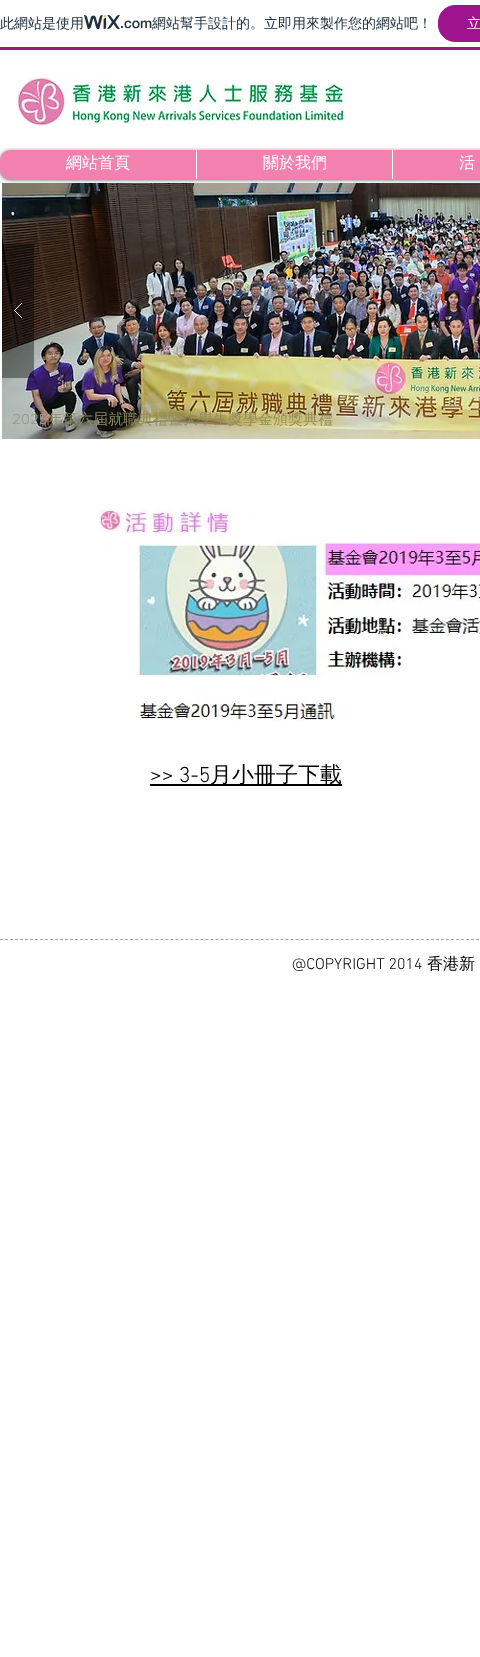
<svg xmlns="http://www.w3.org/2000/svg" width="480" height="1657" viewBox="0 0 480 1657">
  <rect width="100%" height="100%" fill="rgb(255,255,255)"/>
  <rect x="0" y="47" width="480" height="3" fill="rgb(160,19,142)"/>
  <text x="0" y="28" font-family="WenQuanYi Zen Hei" font-size="14" font-weight="500" fill="rgb(32,48,60)">此網站是使用</text>
  <image x="84" y="15" width="36" height="15" href="pic1.png"/>
  <text x="120" y="28" font-family="'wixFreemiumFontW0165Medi'" font-size="14" font-weight="500" fill="rgb(32,48,60)">.com</text>
  <text x="152" y="28" font-family="WenQuanYi Zen Hei" font-size="14" font-weight="500" fill="rgb(32,48,60)">網站幫手設計的。立即用來製作您的網站吧！</text>
  <rect x="438.5" y="5.5" width="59" height="36" rx="16.5" fill="rgb(160,19,142)" stroke="rgb(160,19,142)"/>
  <text x="467" y="28" font-family="WenQuanYi Zen Hei" font-size="14" font-weight="500" fill="rgb(255,255,255)">立</text>
  <image x="16" y="77" width="330" height="49" href="pic2.png"/>
  <rect x="0" y="151" width="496" height="29" rx="10" fill="rgba(0,0,0,0.6)" filter="blur(2px)"/>
  <rect x="0" y="150" width="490" height="29" rx="10" fill="rgb(243,129,175)"/>
  <text x="66" y="168" font-family="WenQuanYi Zen Hei" font-size="16" font-weight="500" fill="rgb(255,255,255)">網站首頁</text>
  <rect x="196" y="150" width="1" height="29" fill="rgb(255,255,255)"/>
  <text x="263" y="168" font-family="WenQuanYi Zen Hei" font-size="16" font-weight="500" fill="rgb(255,255,255)">關於我們</text>
  <rect x="392" y="150" width="1" height="29" fill="rgb(255,255,255)"/>
  <text x="459" y="168" font-family="WenQuanYi Zen Hei" font-size="16" font-weight="500" fill="rgb(255,255,255)">活</text>
  <image x="2" y="183" width="478" height="256" href="pic4.png"/>
  <rect x="2" y="244" width="32" height="134" fill="rgba(0,0,0,0.4)"/>
  <image x="14" y="303" width="8" height="16" href="pic3.png"/>
  <text x="12" y="424" font-family="'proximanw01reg'" font-size="15" fill="rgb(155,154,148)">2025</text>
  <text x="48" y="424" font-family="WenQuanYi Zen Hei" font-size="15" font-weight="500" fill="rgb(146,139,95)">年第六屆就職典禮暨大學生獎學金頒獎典禮</text>
  <image x="98" y="508" width="382" height="213" href="pic5.png"/>
  <text x="150" y="782" font-family="'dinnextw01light'" font-size="22" font-weight="300" fill="rgb(0,0,0)">&gt;&gt; 3-5</text>
  <rect x="150" y="784" width="192" height="2" fill="rgb(0,0,0)"/>
  <text x="210" y="782" font-family="WenQuanYi Zen Hei" font-size="22" font-weight="500" fill="rgb(0,0,0)">月小冊子下載</text>
  <path d="M0 939.5H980" fill="none" stroke="rgb(166,166,166)" stroke-dasharray="3 2.01"/>
  <text x="292" y="969" font-family="'dinnextw01light'" font-size="16" font-weight="300" fill="rgb(0,0,0)">@COPYRIGHT 2014</text>
  <text x="427" y="969" font-family="WenQuanYi Zen Hei" font-size="16" font-weight="500" fill="rgb(0,0,0)">香港新</text>
</svg>
